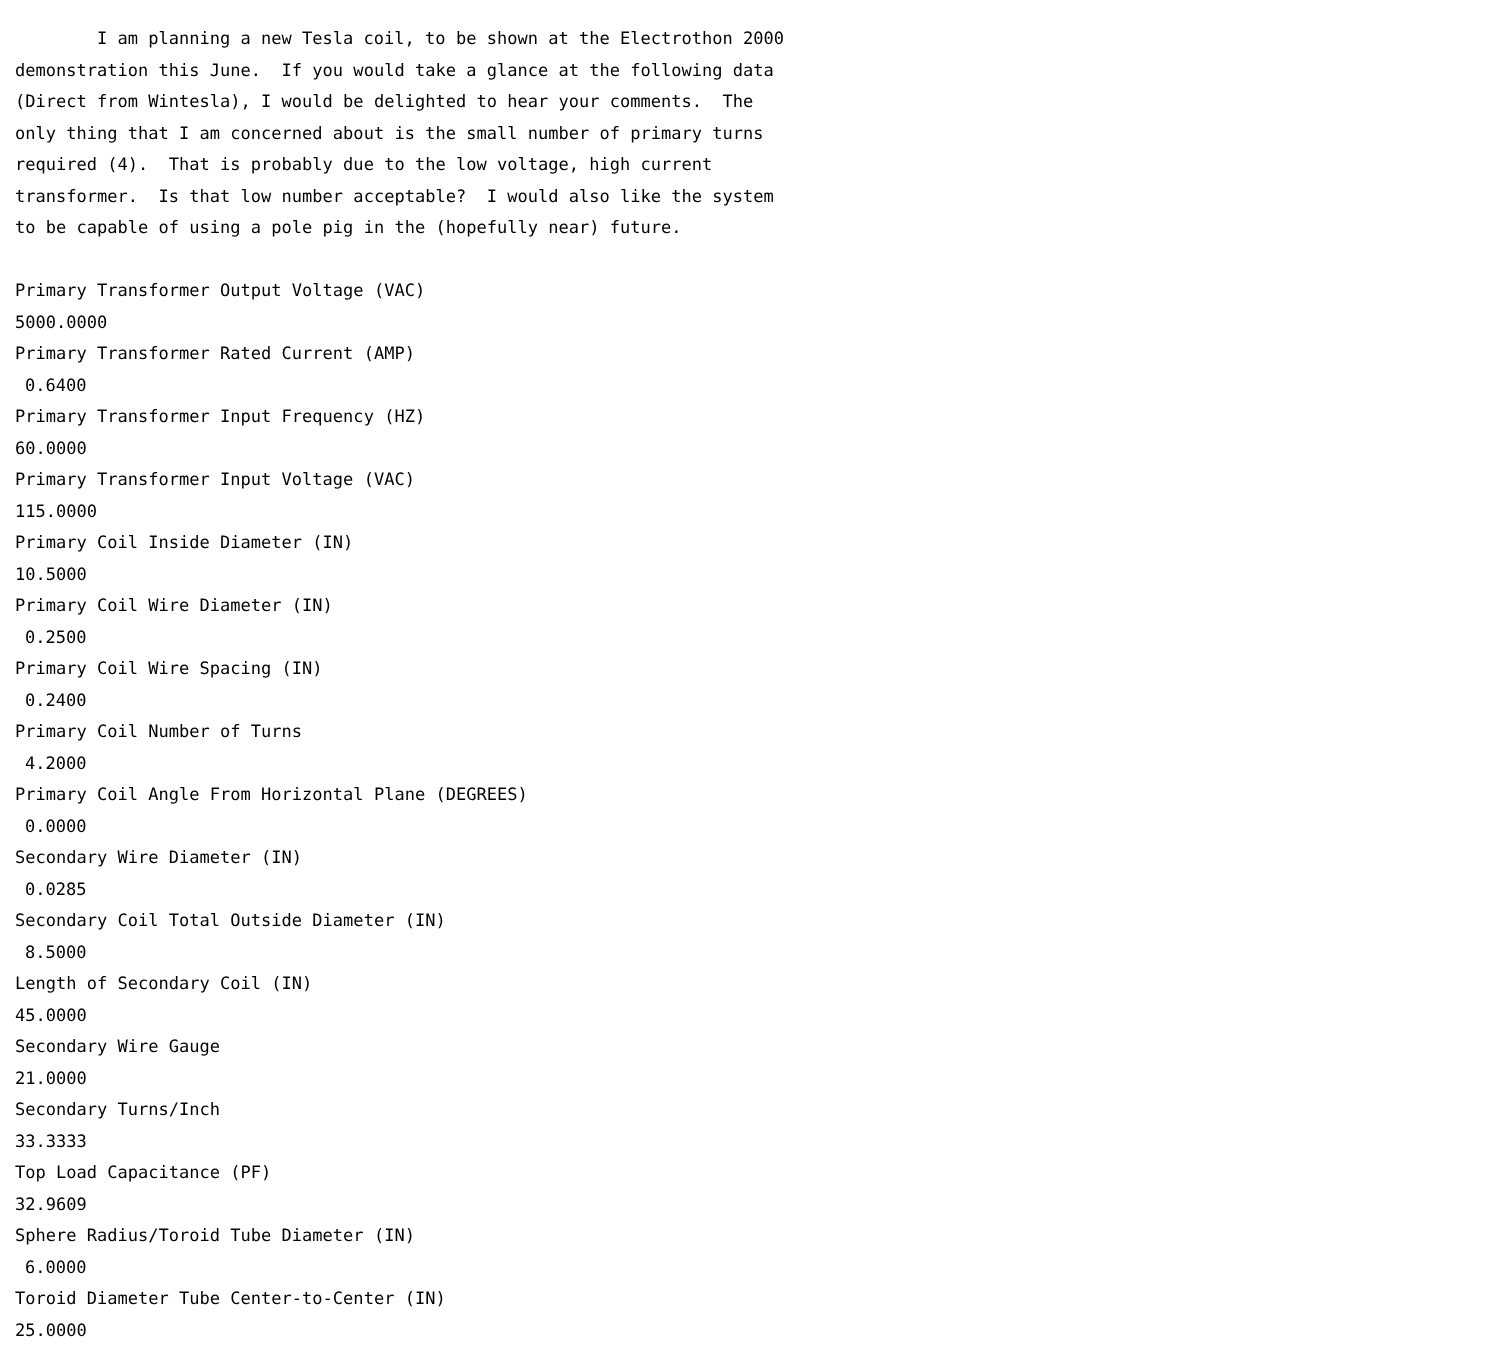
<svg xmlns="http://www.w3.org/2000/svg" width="1485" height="1345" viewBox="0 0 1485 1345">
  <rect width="100%" height="100%" fill="rgb(255,255,255)"/>
  <g font-family="DejaVu Sans Mono" font-size="17.05" fill="rgb(0,0,0)">
    <text x="97" y="44">I am planning a new Tesla coil, to be shown at the Electrothon 2000</text>
    <text xml:space="preserve"><tspan x="15" y="76">demonstration this June.  If you would take a glance at the following data</tspan><tspan x="15" y="107">(Direct from Wintesla), I would be delighted to hear your comments.  The</tspan><tspan x="15" y="139">only thing that I am concerned about is the small number of primary turns</tspan><tspan x="15" y="170">required (4).  That is probably due to the low voltage, high current</tspan><tspan x="15" y="202">transformer.  Is that low number acceptable?  I would also like the system</tspan><tspan x="15" y="233">to be capable of using a pole pig in the (hopefully near) future.</tspan></text>
    <text>
      <tspan x="15" y="296">Primary Transformer Output Voltage (VAC)</tspan>
      <tspan x="15" y="328">5000.0000</tspan>
      <tspan x="15" y="359">Primary Transformer Rated Current (AMP)</tspan>
    </text>
    <text x="25" y="391">0.6400</text>
    <text>
      <tspan x="15" y="422">Primary Transformer Input Frequency (HZ)</tspan>
      <tspan x="15" y="454">60.0000</tspan>
      <tspan x="15" y="485">Primary Transformer Input Voltage (VAC)</tspan>
      <tspan x="15" y="517">115.0000</tspan>
      <tspan x="15" y="548">Primary Coil Inside Diameter (IN)</tspan>
      <tspan x="15" y="580">10.5000</tspan>
      <tspan x="15" y="611">Primary Coil Wire Diameter (IN)</tspan>
    </text>
    <text x="25" y="643">0.2500</text>
    <text x="15" y="674">Primary Coil Wire Spacing (IN)</text>
    <text x="25" y="706">0.2400</text>
    <text x="15" y="737">Primary Coil Number of Turns</text>
    <text x="25" y="769">4.2000</text>
    <text x="15" y="800">Primary Coil Angle From Horizontal Plane (DEGREES)</text>
    <text x="25" y="832">0.0000</text>
    <text x="15" y="863">Secondary Wire Diameter (IN)</text>
    <text x="25" y="895">0.0285</text>
    <text x="15" y="926">Secondary Coil Total Outside Diameter (IN)</text>
    <text x="25" y="958">8.5000</text>
    <text>
      <tspan x="15" y="989">Length of Secondary Coil (IN)</tspan>
      <tspan x="15" y="1021">45.0000</tspan>
      <tspan x="15" y="1052">Secondary Wire Gauge</tspan>
      <tspan x="15" y="1084">21.0000</tspan>
      <tspan x="15" y="1115">Secondary Turns/Inch</tspan>
      <tspan x="15" y="1147">33.3333</tspan>
      <tspan x="15" y="1178">Top Load Capacitance (PF)</tspan>
      <tspan x="15" y="1210">32.9609</tspan>
      <tspan x="15" y="1241">Sphere Radius/Toroid Tube Diameter (IN)</tspan>
    </text>
    <text x="25" y="1273">6.0000</text>
    <text>
      <tspan x="15" y="1304">Toroid Diameter Tube Center-to-Center (IN)</tspan>
      <tspan x="15" y="1336">25.0000</tspan>
    </text>
  </g>
</svg>
